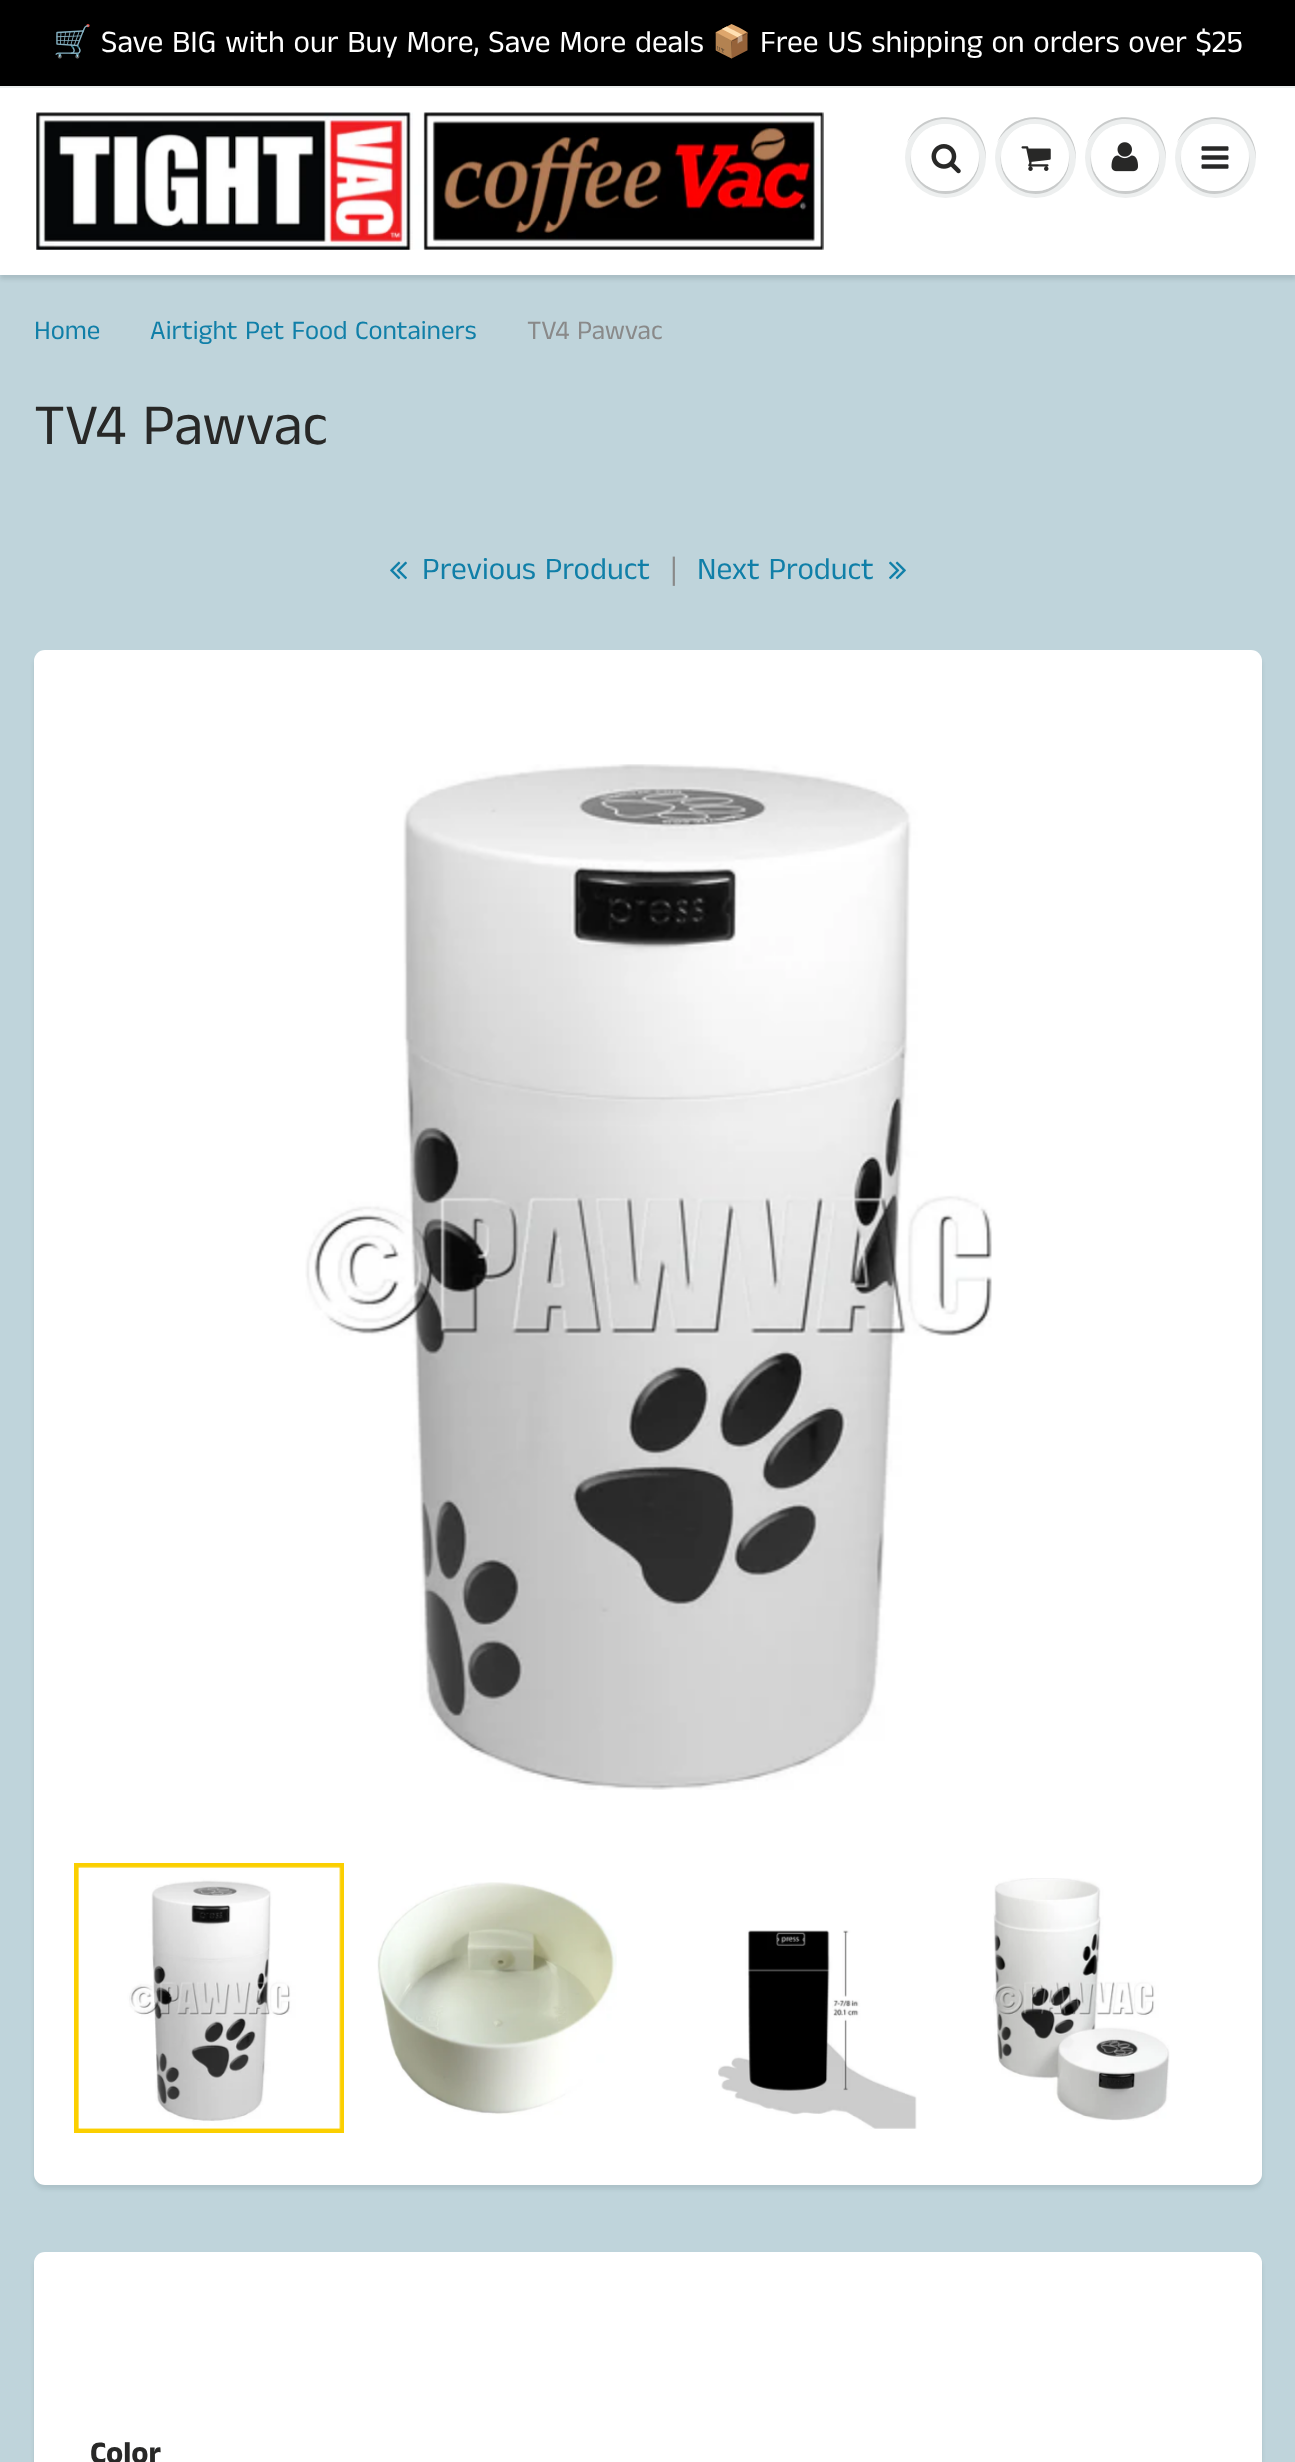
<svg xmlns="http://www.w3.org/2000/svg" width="1295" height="2462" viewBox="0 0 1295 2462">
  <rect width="100%" height="100%" fill="rgb(0,0,0)"/>
  <text x="53" y="52" font-family="Noto Color Emoji" font-size="31.5" fill="rgb(255,255,255)">🛒</text>
  <text x="101" y="52" font-family="Anek Tamil" font-size="31.5" fill="rgb(255,255,255)">Save BIG with our Buy More, Save More deals</text>
  <text x="712" y="52" font-family="Noto Color Emoji" font-size="31.5" fill="rgb(255,255,255)">📦</text>
  <text x="760" y="52" font-family="Anek Tamil" font-size="31.5" fill="rgb(255,255,255)">Free US shipping on orders over $25</text>
  <rect x="0" y="275" width="1295" height="2187" fill="rgb(191,212,219)"/>
  <rect x="0" y="90" width="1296" height="189" fill="rgba(11,25,28,0.12)" filter="blur(2px)"/>
  <rect x="0" y="88" width="1295" height="187" fill="rgb(255,255,255)"/>
  <rect x="0" y="86" width="1295" height="2" fill="rgb(236,239,239)"/>
  <image x="36" y="112" width="788" height="138" href="pic1.png"/>
  <circle cx="945.5" cy="157.5" r="40.5" fill="rgb(237,239,239)"/>
  <path d="M945 119C967 119 985 136 986 159C987 113 923 101 907 143C914 129 929 119 945 119Z" fill="rgb(201,203,203)"/>
  <path d="M911 155C906 190 953 209 973 179C978 172 980 164 979 155C979 163 977 170 973 176C954 205 909 189 911 155Z" fill="rgb(201,203,203)"/>
  <rect x="911" y="124" width="68" height="67" rx="33.5" fill="rgb(255,255,255)"/>
  <path d="M945 126C964 126 978 140 979 159C979 152 977 145 973 139C955 111 910 125 911 159C912 140 926 126 945 126Z" fill="rgb(255,255,255)"/>
  <image x="931" y="144" width="30" height="30" href="pic2.png"/>
  <circle cx="1035.5" cy="157.5" r="40.5" fill="rgb(237,239,239)"/>
  <path d="M1035 119C1057 119 1075 136 1076 159C1077 113 1013 101 997 143C1004 129 1019 119 1035 119Z" fill="rgb(201,203,203)"/>
  <path d="M1001 155C996 190 1043 209 1063 179C1068 172 1070 164 1069 155C1069 163 1067 170 1063 176C1044 205 999 189 1001 155Z" fill="rgb(201,203,203)"/>
  <rect x="1001" y="124" width="68" height="67" rx="33.5" fill="rgb(255,255,255)"/>
  <path d="M1035 126C1054 126 1068 140 1069 159C1070 125 1025 111 1007 139C1003 145 1001 152 1001 159C1002 140 1016 126 1035 126Z" fill="rgb(255,255,255)"/>
  <image x="1021" y="146" width="30" height="25" href="pic3.png"/>
  <circle cx="1125.5" cy="157.5" r="40.5" fill="rgb(237,239,239)"/>
  <path d="M1125 119C1147 119 1165 136 1166 159C1167 113 1103 101 1087 143C1094 129 1109 119 1125 119Z" fill="rgb(201,203,203)"/>
  <path d="M1091 155C1086 190 1133 209 1153 179C1158 172 1160 164 1159 155C1161 189 1116 205 1097 176C1093 170 1091 163 1091 155Z" fill="rgb(201,203,203)"/>
  <rect x="1091" y="124" width="68" height="67" rx="33.5" fill="rgb(255,255,255)"/>
  <path d="M1125 126C1144 126 1158 140 1159 159C1159 152 1157 145 1153 139C1135 111 1090 125 1091 159C1092 140 1106 126 1125 126Z" fill="rgb(255,255,255)"/>
  <image x="1111" y="142" width="27" height="30" href="pic4.png"/>
  <circle cx="1215.5" cy="157.5" r="40.5" fill="rgb(237,239,239)"/>
  <path d="M1215 119C1237 119 1255 136 1256 159C1257 113 1193 101 1177 143C1184 129 1199 119 1215 119Z" fill="rgb(201,203,203)"/>
  <path d="M1181 155C1180 164 1182 172 1187 179C1207 209 1254 190 1249 155C1249 163 1247 170 1243 176C1224 205 1179 189 1181 155Z" fill="rgb(201,203,203)"/>
  <rect x="1181" y="124" width="68" height="67" rx="33.5" fill="rgb(255,255,255)"/>
  <path d="M1215 126C1234 126 1248 140 1249 159C1249 152 1247 145 1243 139C1225 111 1180 125 1181 159C1182 140 1196 126 1215 126Z" fill="rgb(255,255,255)"/>
  <image x="1201" y="146" width="28" height="23" href="pic5.png"/>
  <g font-family="Anek Tamil" font-size="27" fill="rgb(16,127,168)">
    <text x="34" y="339">Home</text>
    <text x="150" y="339">Airtight Pet Food Containers</text>
  </g>
  <text x="527" y="339" font-family="Anek Tamil" font-size="27" fill="rgb(137,137,137)">TV4 Pawvac</text>
  <text x="34" y="444" font-family="Anek Tamil" font-size="58.5" fill="rgb(40,40,39)">TV4 Pawvac</text>
  <image x="390" y="561" width="17" height="19" href="pic6.png"/>
  <text x="422" y="579" font-family="Anek Tamil" font-size="31.5" fill="rgb(16,127,168)">Previous Product</text>
  <text x="670" y="579" font-family="Anek Tamil" font-size="31.5" fill="rgb(137,137,137)">|</text>
  <text x="697" y="579" font-family="Anek Tamil" font-size="31.5" fill="rgb(16,127,168)">Next Product</text>
  <image x="889" y="561" width="17" height="19" href="pic7.png"/>
  <rect x="34" y="655" width="1228" height="1534" rx="11" fill="rgba(11,25,28,0.1)" filter="blur(2px)"/>
  <rect x="34" y="650" width="1228" height="1535" rx="11" fill="rgb(255,255,255)"/>
  <image x="305" y="764" width="687" height="1026" href="pic8.png"/>
  <rect x="76.5" y="1865.5" width="265" height="265" fill="none" stroke="rgb(251,207,0)" stroke-width="5"/>
  <image x="78" y="1866" width="263" height="263" href="pic9.png"/>
  <image x="377" y="1882" width="240" height="233" href="pic10.png"/>
  <image x="718" y="1930" width="199" height="199" href="pic11.png"/>
  <image x="993" y="1878" width="177" height="243" href="pic12.png"/>
  <rect x="34" y="2257" width="1228" height="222" rx="11" fill="rgba(11,25,28,0.1)" filter="blur(2px)"/>
  <rect x="34" y="2252" width="1228" height="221" rx="11" fill="rgb(255,255,255)"/>
  <text x="90" y="2463" font-family="Anek Tamil" font-size="31.5" font-weight="bold" fill="rgb(40,40,39)">Color</text>
</svg>
